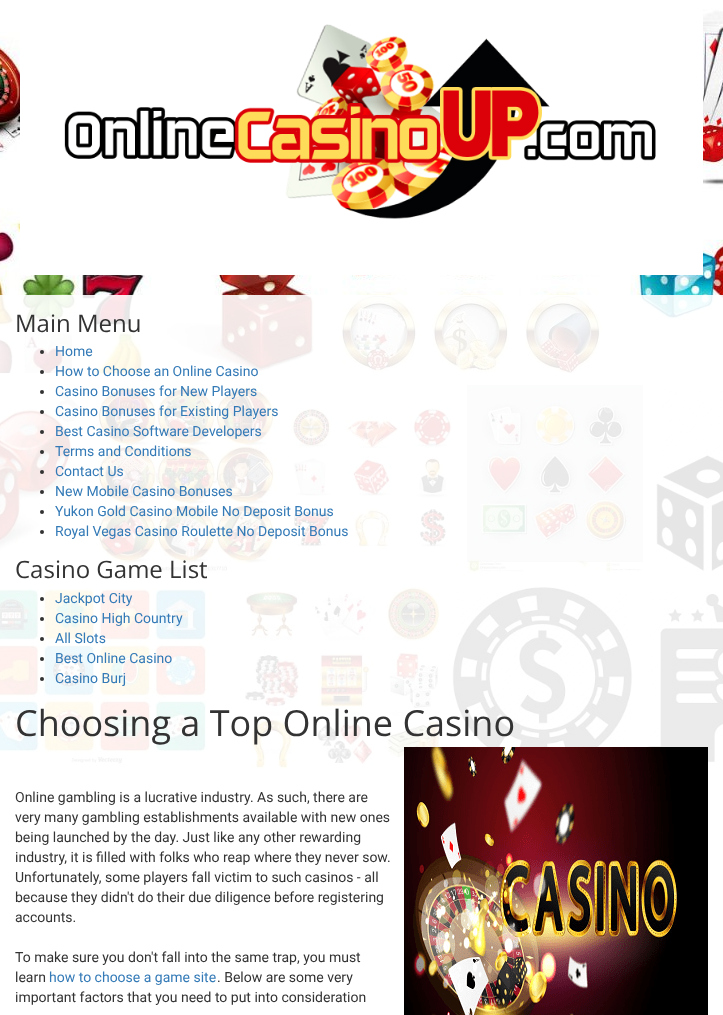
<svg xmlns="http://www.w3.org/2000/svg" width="723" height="1015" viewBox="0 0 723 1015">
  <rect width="100%" height="100%" fill="rgb(255,255,255)"/>
  <image x="0" y="0" width="723" height="769" href="pic1.png"/>
  <rect x="20" y="0" width="683" height="275" fill="rgb(255,255,255)"/>
  <image x="64" y="24" width="592" height="195" href="pic2.png"/>
  <rect x="0" y="295" width="723" height="474" fill="rgba(255,255,255,0.9)"/>
  <text x="15" y="332" font-family="Open Sans" font-size="24" fill="rgb(51,51,51)">Main Menu</text>
  <circle cx="42" cy="352" r="2" fill="rgb(51,51,51)"/>
  <text x="55" y="356" font-family="Roboto" font-size="14" fill="rgb(51,122,183)">Home</text>
  <circle cx="42" cy="372" r="2" fill="rgb(51,51,51)"/>
  <text x="55" y="376" font-family="Roboto" font-size="14" fill="rgb(51,122,183)">How to Choose an Online Casino</text>
  <circle cx="42" cy="392" r="2" fill="rgb(51,51,51)"/>
  <text x="55" y="396" font-family="Roboto" font-size="14" fill="rgb(51,122,183)">Casino Bonuses for New Players</text>
  <circle cx="42" cy="412" r="2" fill="rgb(51,51,51)"/>
  <text x="55" y="416" font-family="Roboto" font-size="14" fill="rgb(51,122,183)">Casino Bonuses for Existing Players</text>
  <circle cx="42" cy="432" r="2" fill="rgb(51,51,51)"/>
  <text x="55" y="436" font-family="Roboto" font-size="14" fill="rgb(51,122,183)">Best Casino Software Developers</text>
  <circle cx="42" cy="452" r="2" fill="rgb(51,51,51)"/>
  <text x="55" y="456" font-family="Roboto" font-size="14" fill="rgb(51,122,183)">Terms and Conditions</text>
  <circle cx="42" cy="472" r="2" fill="rgb(51,51,51)"/>
  <text x="55" y="476" font-family="Roboto" font-size="14" fill="rgb(51,122,183)">Contact Us</text>
  <circle cx="42" cy="492" r="2" fill="rgb(51,51,51)"/>
  <text x="55" y="496" font-family="Roboto" font-size="14" fill="rgb(51,122,183)">New Mobile Casino Bonuses</text>
  <circle cx="42" cy="512" r="2" fill="rgb(51,51,51)"/>
  <text x="55" y="516" font-family="Roboto" font-size="14" fill="rgb(51,122,183)">Yukon Gold Casino Mobile No Deposit Bonus</text>
  <circle cx="42" cy="532" r="2" fill="rgb(51,51,51)"/>
  <text x="55" y="536" font-family="Roboto" font-size="14" fill="rgb(51,122,183)">Royal Vegas Casino Roulette No Deposit Bonus</text>
  <text x="15" y="578" font-family="Open Sans" font-size="24" fill="rgb(51,51,51)">Casino Game List</text>
  <circle cx="42" cy="599" r="2" fill="rgb(51,51,51)"/>
  <text x="55" y="603" font-family="Roboto" font-size="14" fill="rgb(51,122,183)">Jackpot City</text>
  <circle cx="42" cy="619" r="2" fill="rgb(51,51,51)"/>
  <text x="55" y="623" font-family="Roboto" font-size="14" fill="rgb(51,122,183)">Casino High Country</text>
  <circle cx="42" cy="639" r="2" fill="rgb(51,51,51)"/>
  <text x="55" y="643" font-family="Roboto" font-size="14" fill="rgb(51,122,183)">All Slots</text>
  <circle cx="42" cy="659" r="2" fill="rgb(51,51,51)"/>
  <text x="55" y="663" font-family="Roboto" font-size="14" fill="rgb(51,122,183)">Best Online Casino</text>
  <circle cx="42" cy="679" r="2" fill="rgb(51,51,51)"/>
  <text x="55" y="683" font-family="Roboto" font-size="14" fill="rgb(51,122,183)">Casino Burj</text>
  <text x="15" y="736" font-family="Open Sans" font-size="36" fill="rgb(51,51,51)">Choosing a Top Online Casino</text>
  <text x="15" y="802" font-family="Roboto" font-size="14" fill="rgb(51,51,51)">Online gambling is a lucrative industry. As such, there are</text>
  <image x="404" y="747" width="304" height="268" href="pic3.png"/>
  <g font-family="Roboto" font-size="14" fill="rgb(51,51,51)">
    <text>
      <tspan x="15" y="822">very many gambling establishments available with new ones</tspan>
      <tspan x="15" y="842">being launched by the day. Just like any other rewarding</tspan>
      <tspan x="15" y="862">industry, it is filled with folks who reap where they never sow.</tspan>
      <tspan x="15" y="882">Unfortunately, some players fall victim to such casinos - all</tspan>
      <tspan x="15" y="902">because they didn't do their due diligence before registering</tspan>
      <tspan x="15" y="922">accounts.</tspan>
    </text>
    <text>
      <tspan x="15" y="962">To make sure you don't fall into the same trap, you must</tspan>
      <tspan x="15" y="982">learn</tspan>
    </text>
  </g>
  <text x="49" y="982" font-family="Roboto" font-size="14" fill="rgb(51,122,183)">how to choose a game site</text>
  <g font-family="Roboto" font-size="14" fill="rgb(51,51,51)">
    <text x="217" y="982">. Below are some very</text>
    <text x="15" y="1002">important factors that you need to put into consideration</text>
  </g>
</svg>
